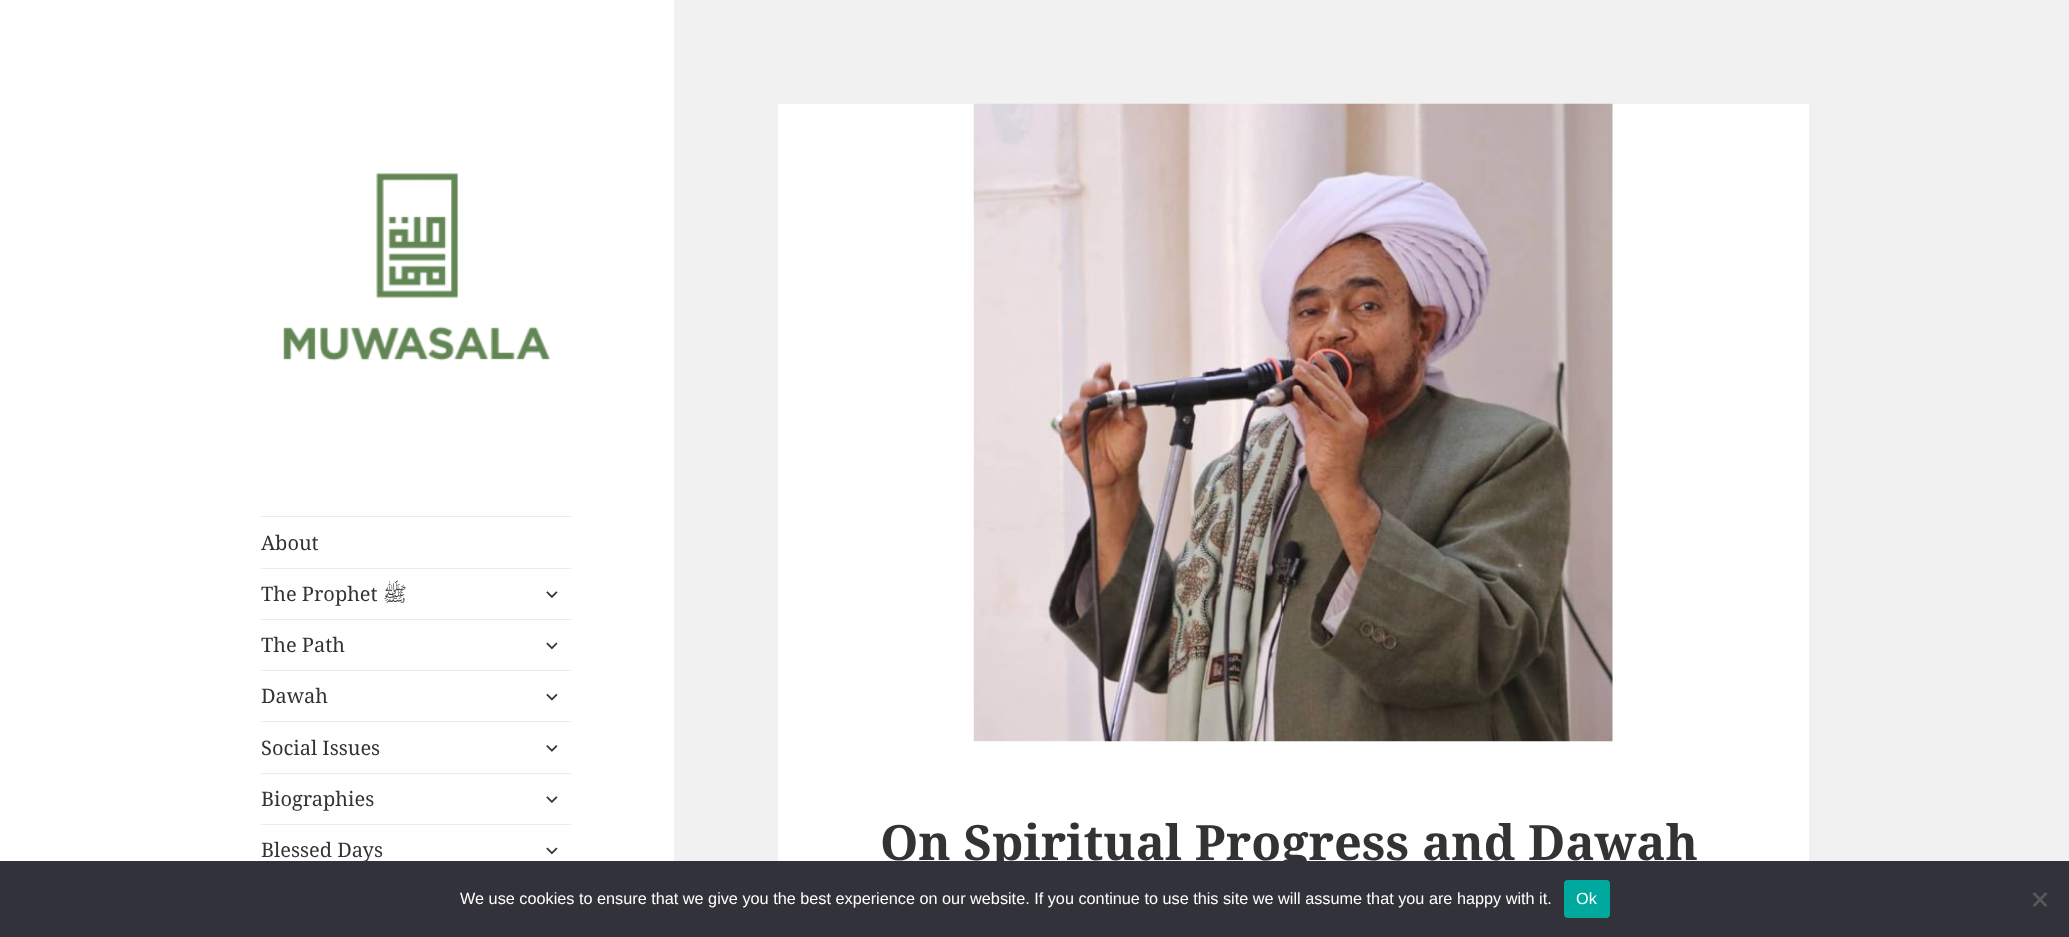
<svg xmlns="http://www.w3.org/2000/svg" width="2069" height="937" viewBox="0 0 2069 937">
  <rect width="100%" height="100%" fill="rgb(241,241,241)"/>
  <rect x="0" y="0" width="674" height="861" fill="rgb(255,255,255)"/>
  <image x="283" y="173" width="268" height="188" href="pic1.png"/>
  <rect x="261" y="516" width="310" height="1" fill="rgb(235,235,235)"/>
  <text x="261" y="550" font-family="Noto Serif" font-size="20" fill="rgb(51,51,51)">About</text>
  <rect x="261" y="568" width="310" height="1" fill="rgb(235,235,235)"/>
  <text x="261" y="601" font-family="Noto Serif" font-size="20" fill="rgb(51,51,51)">The Prophet</text>
  <text x="407" y="601" font-family="Lateef" font-size="20" direction="rtl" fill="rgb(51,51,51)">ﷺ</text>
  <image x="546" y="591" width="12" height="7" href="pic2.png"/>
  <rect x="261" y="619" width="310" height="1" fill="rgb(235,235,235)"/>
  <text x="261" y="652" font-family="Noto Serif" font-size="20" fill="rgb(51,51,51)">The Path</text>
  <image x="546" y="642" width="12" height="8" href="pic3.png"/>
  <rect x="261" y="670" width="310" height="1" fill="rgb(235,235,235)"/>
  <text x="261" y="703" font-family="Noto Serif" font-size="20" fill="rgb(51,51,51)">Dawah</text>
  <image x="546" y="693" width="12" height="8" href="pic4.png"/>
  <rect x="261" y="721" width="310" height="1" fill="rgb(235,235,235)"/>
  <text x="261" y="755" font-family="Noto Serif" font-size="20" fill="rgb(51,51,51)">Social Issues</text>
  <image x="546" y="745" width="12" height="7" href="pic5.png"/>
  <rect x="261" y="773" width="310" height="1" fill="rgb(235,235,235)"/>
  <text x="261" y="806" font-family="Noto Serif" font-size="20" fill="rgb(51,51,51)">Biographies</text>
  <image x="546" y="796" width="12" height="7" href="pic2.png"/>
  <rect x="261" y="824" width="310" height="1" fill="rgb(235,235,235)"/>
  <text x="261" y="857" font-family="Noto Serif" font-size="20" fill="rgb(51,51,51)">Blessed Days</text>
  <image x="546" y="847" width="12" height="8" href="pic3.png"/>
  <rect x="778" y="104" width="1031" height="757" fill="rgb(255,255,255)"/>
  <image x="973" y="103" width="640" height="639" href="pic6.png"/>
  <text x="880" y="860" font-family="Noto Serif" font-size="48.75" font-weight="bold" fill="rgb(51,51,51)">On Spiritual Progress and Dawah</text>
  <rect x="0" y="861" width="2069" height="76" fill="rgb(50,50,58)"/>
  <text x="460" y="904" font-family="Liberation Sans" font-size="16.25" fill="rgb(255,255,255)">We use cookies to ensure that we give you the best experience on our website. If you continue to use this site we will assume that you are happy with it.</text>
  <rect x="1564" y="880" width="46" height="38" rx="4" fill="rgb(0,169,157)"/>
  <text x="1576" y="904" font-family="Liberation Sans" font-size="16.25" fill="rgb(255,255,255)">Ok</text>
  <path d="M2045.5 892L2047.5 894L2034.5 907L2032.5 905.5Z" fill="rgb(89,89,93)"/>
  <path d="M2032.5 894L2034.5 892L2047.5 905.5L2045.5 907Z" fill="rgb(89,89,93)"/>
</svg>
